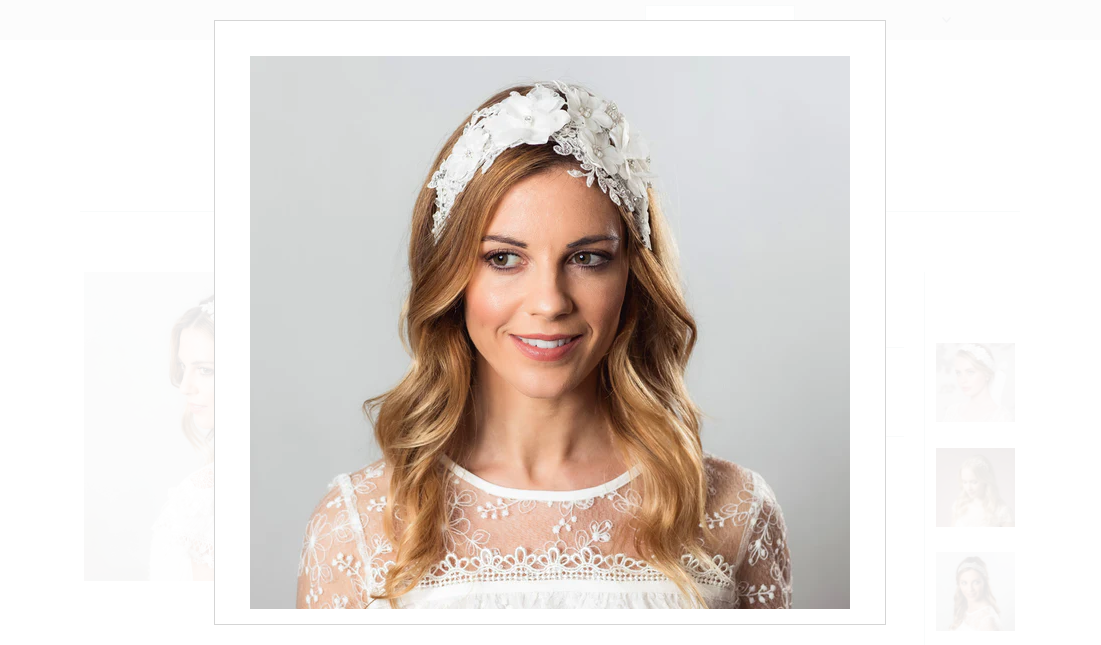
<svg xmlns="http://www.w3.org/2000/svg" width="1101" height="645" viewBox="0 0 1101 645">
  <rect width="100%" height="100%" fill="rgb(255,255,255)"/>
  <rect x="0" y="0" width="1101" height="40" fill="rgb(252,252,252)"/>
  <rect x="646" y="6" width="148" height="14" fill="rgb(255,255,255)"/>
  <rect x="645.5" y="5.5" width="149" height="31" fill="none" stroke="rgb(249,251,251)"/>
  <image x="942" y="17" width="9" height="6" href="pic1.png"/>
  <rect x="80" y="211" width="940" height="1" fill="rgb(249,251,251)"/>
  <image x="84" y="272" width="130" height="309" href="pic2.png"/>
  <rect x="924" y="272" width="1" height="373" fill="rgb(249,251,251)"/>
  <rect x="886" y="347" width="18" height="1" fill="rgb(249,251,251)"/>
  <rect x="886" y="436" width="18" height="1" fill="rgb(249,251,251)"/>
  <image x="936" y="343" width="79" height="79" href="pic3.png"/>
  <image x="936" y="448" width="79" height="79" href="pic4.png"/>
  <image x="936" y="552" width="79" height="79" href="pic5.png"/>
  <rect x="215" y="21" width="670" height="191" fill="rgb(255,255,255)"/>
  <rect x="214.5" y="20.5" width="671" height="604" fill="none" stroke="rgb(213,213,213)"/>
  <image x="250" y="56" width="600" height="553" href="pic6.png"/>
</svg>
